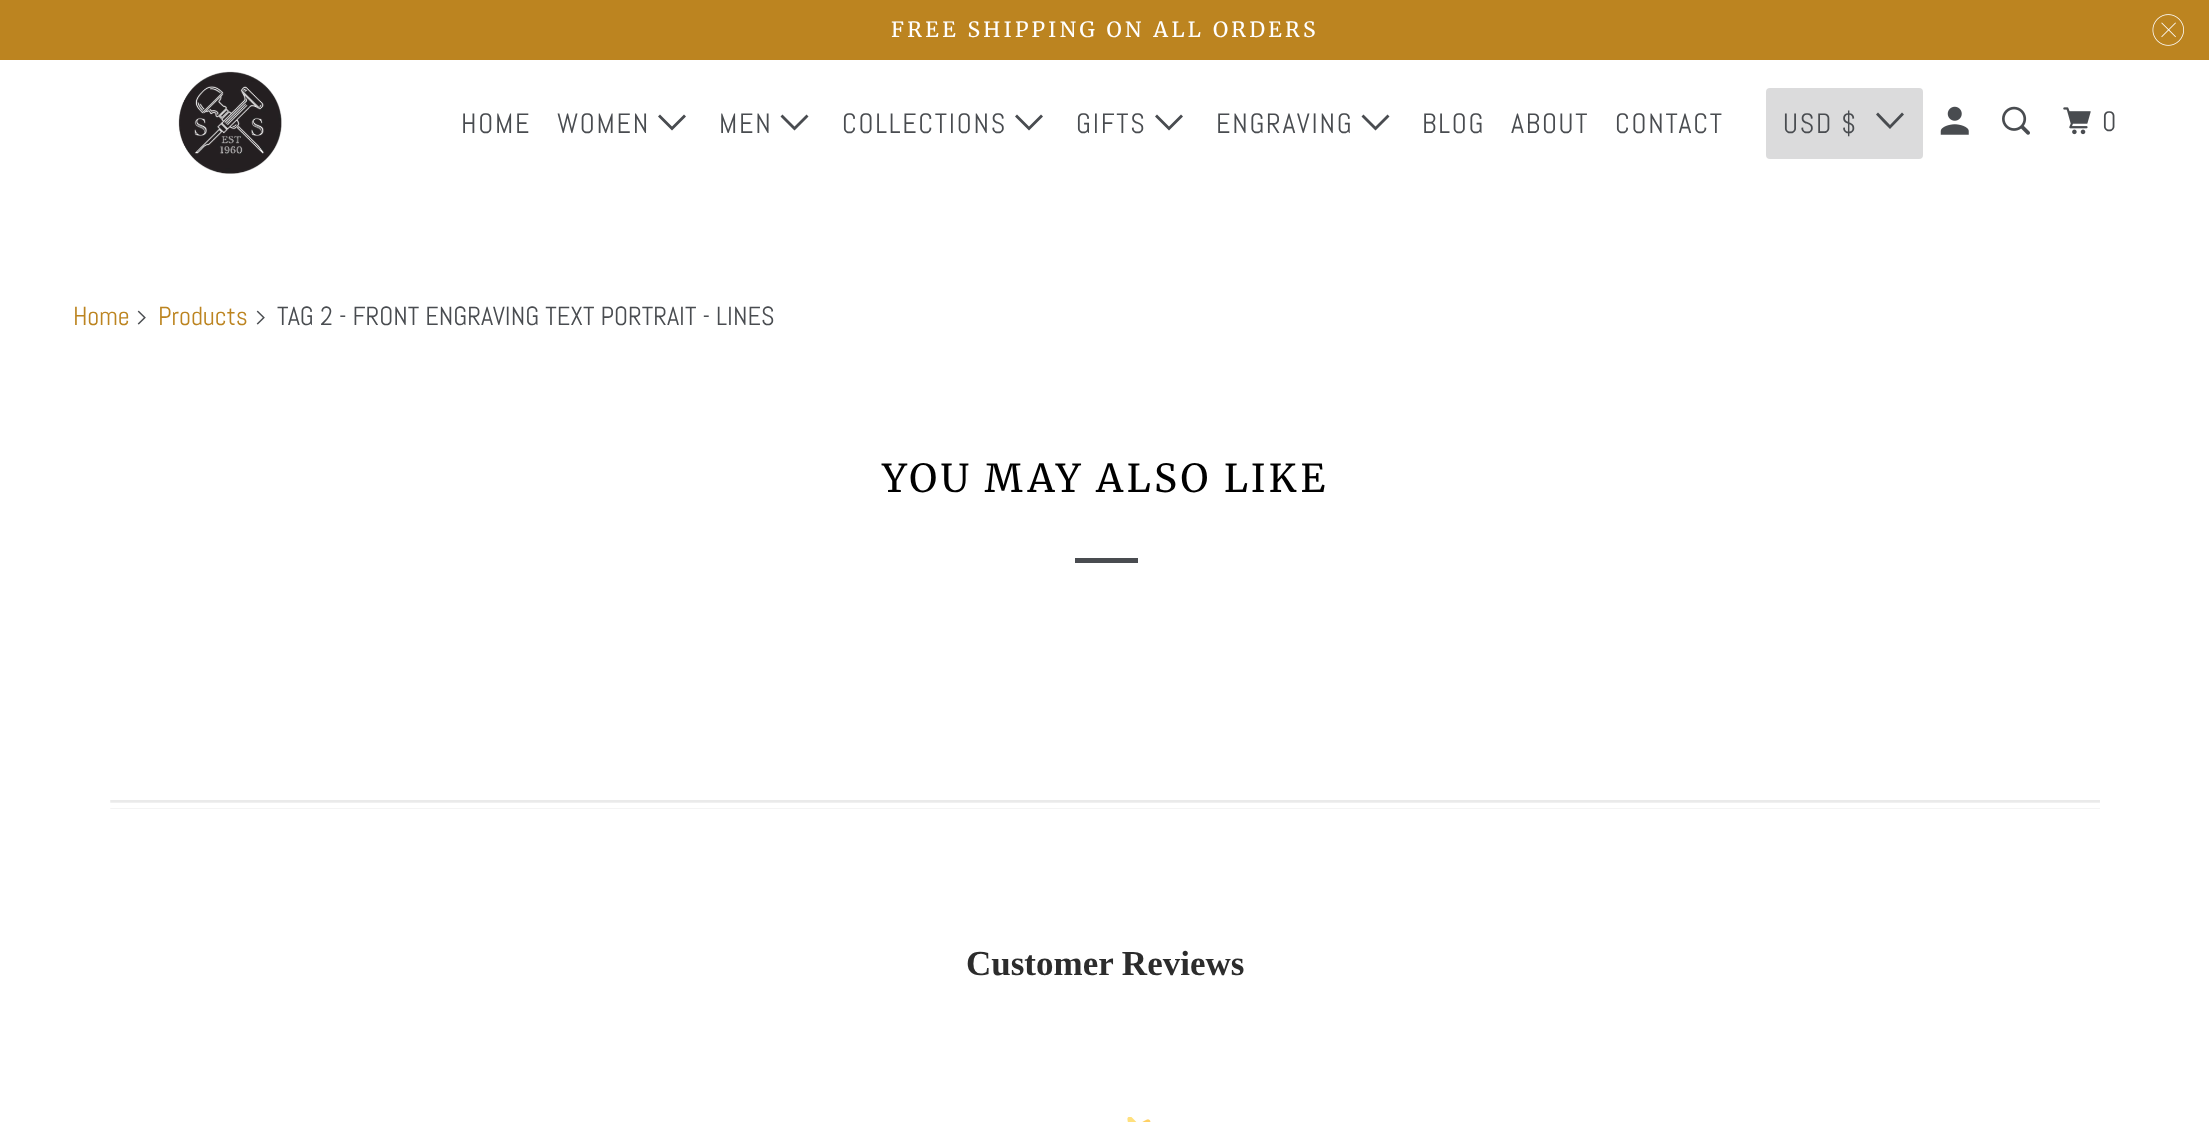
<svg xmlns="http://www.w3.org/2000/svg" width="2209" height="1122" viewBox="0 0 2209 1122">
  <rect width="100%" height="100%" fill="rgb(255,255,255)"/>
  <rect x="0" y="0" width="2209" height="60" fill="rgb(188,132,32)"/>
  <text x="891" y="37" font-family="Merriweather" font-size="21" letter-spacing="3.5" fill="rgb(255,255,255)">FREE SHIPPING ON ALL ORDERS</text>
  <image x="2152" y="14" width="32" height="32" href="pic1.png"/>
  <image x="178" y="71" width="104" height="103" href="pic2.png"/>
  <g font-family="Abel" font-size="28" letter-spacing="1.75" fill="rgb(73,76,80)">
    <text x="461" y="133">HOME</text>
    <text x="557" y="133">WOMEN</text>
  </g>
  <path d="M665 123.5L658 116.5L660 114.5L672 126.5L684 114.5L686 116.5L672 130.5Z" fill="rgb(73,76,80)"/>
  <text x="719" y="133" font-family="Abel" font-size="28" letter-spacing="1.75" fill="rgb(73,76,80)">MEN</text>
  <path d="M787.5 123.5L780.5 116.5L782.5 114.5L794.5 126.5L806.5 114.5L808.5 116.5L794.5 130.5Z" fill="rgb(73,76,80)"/>
  <text x="842" y="133" font-family="Abel" font-size="28" letter-spacing="1.75" fill="rgb(73,76,80)">COLLECTIONS</text>
  <path d="M1022 123.5L1015 116.5L1017 114.5L1029 126.5L1041 114.5L1043 116.5L1029 130.5Z" fill="rgb(73,76,80)"/>
  <text x="1076" y="133" font-family="Abel" font-size="28" letter-spacing="1.75" fill="rgb(73,76,80)">GIFTS</text>
  <path d="M1162 123.5L1155 116.5L1157 114.5L1169 126.5L1181 114.5L1183 116.5L1169 130.5Z" fill="rgb(73,76,80)"/>
  <text x="1216" y="133" font-family="Abel" font-size="28" letter-spacing="1.75" fill="rgb(73,76,80)">ENGRAVING</text>
  <path d="M1368.5 123.5L1361.5 116.5L1363.5 114.5L1375.5 126.5L1387.5 114.5L1389.5 116.5L1375.5 130.5Z" fill="rgb(73,76,80)"/>
  <g font-family="Abel" font-size="28" letter-spacing="1.75" fill="rgb(73,76,80)">
    <text x="1422" y="133">BLOG</text>
    <text x="1511" y="133">ABOUT</text>
    <text x="1615" y="133">CONTACT</text>
  </g>
  <rect x="1766" y="88" width="157" height="71" rx="4" fill="rgb(219,219,220)"/>
  <text x="1783" y="133" font-family="Abel" font-size="28" letter-spacing="1.75" fill="rgb(73,76,80)">USD $</text>
  <path d="M1883 122L1876 114.5L1878 112.5L1890 125L1902 112.5L1904 114.5L1890 129Z" fill="rgb(73,76,80)"/>
  <image x="1940" y="106" width="29" height="29" href="pic3.png"/>
  <image x="2002" y="106" width="28" height="29" href="pic4.png"/>
  <image x="2063" y="107" width="28" height="28" href="pic5.png"/>
  <text x="2102" y="131" font-family="Abel" font-size="28" letter-spacing="1.75" fill="rgb(73,76,80)">0</text>
  <text x="73" y="325" font-family="Abel" font-size="26.25" fill="rgb(188,132,32)">Home</text>
  <image x="137" y="310" width="9" height="15" href="pic6.png"/>
  <text x="158" y="325" font-family="Abel" font-size="26.25" fill="rgb(188,132,32)">Products</text>
  <image x="256" y="310" width="9" height="15" href="pic6.png"/>
  <text x="277" y="325" font-family="Abel" font-size="26.25" fill="rgb(73,76,80)">TAG 2 - FRONT ENGRAVING TEXT PORTRAIT - LINES</text>
  <text x="882" y="492" word-spacing="-0.5" font-family="Merriweather" font-size="38.5" letter-spacing="3.5" fill="rgb(0,0,0)">YOU MAY ALSO LIKE</text>
  <rect x="1075" y="558" width="63" height="5" fill="rgb(73,76,80)"/>
  <image x="110" y="800" width="1990" height="9" href="pic7.png"/>
  <text x="966" y="975" font-family="Liberation Serif" font-size="35" font-weight="bold" fill="rgb(44,44,44)">Customer Reviews</text>
  <image x="1127" y="1117" width="24" height="5" href="pic8.png"/>
</svg>
